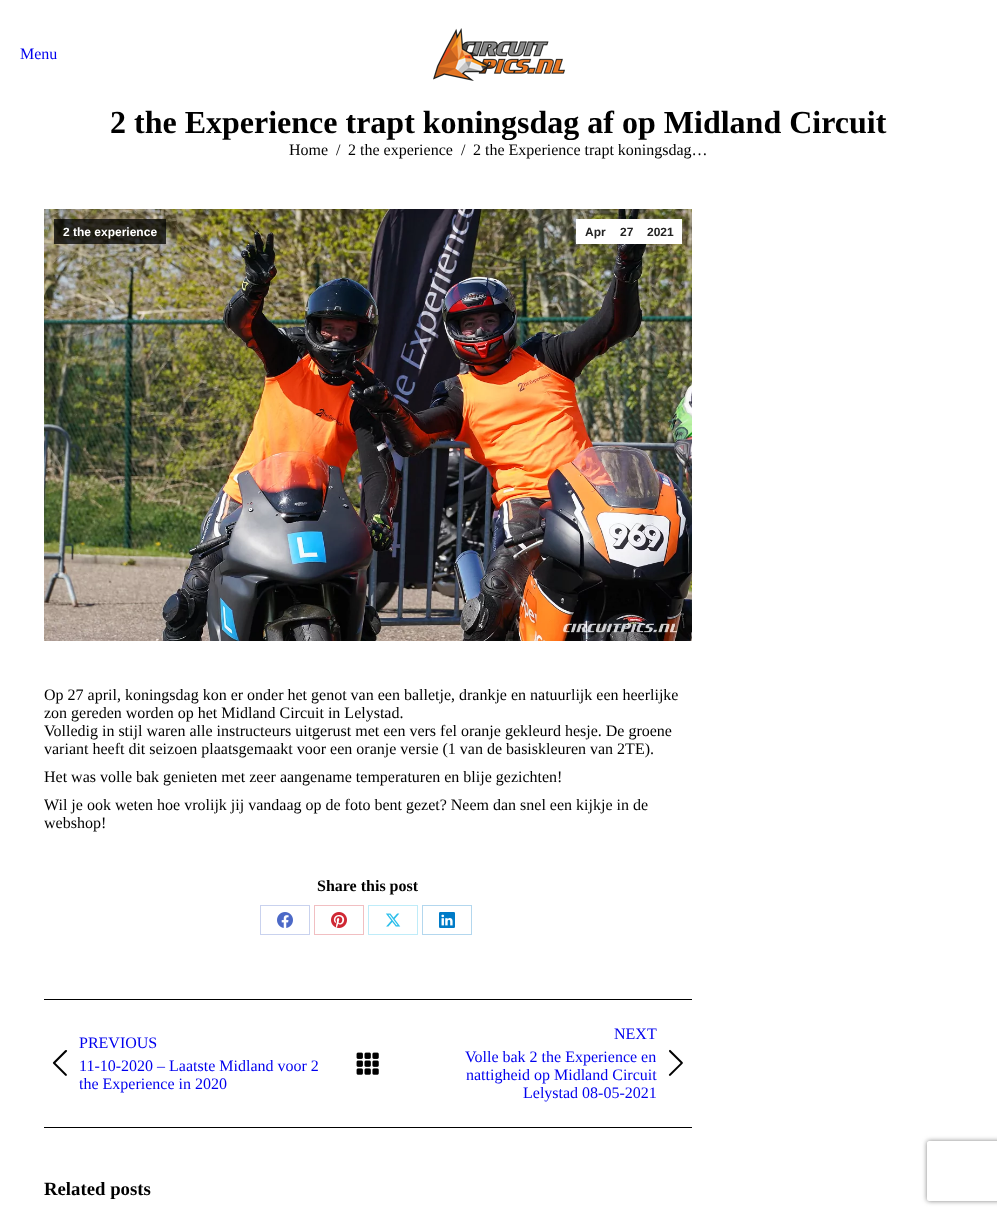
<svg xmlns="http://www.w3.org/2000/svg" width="997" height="1215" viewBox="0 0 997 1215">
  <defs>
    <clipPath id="clip1"><path d="M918 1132H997V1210H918ZM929 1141H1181C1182 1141 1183 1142 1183 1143V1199C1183 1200 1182 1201 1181 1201H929C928 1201 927 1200 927 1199V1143C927 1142 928 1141 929 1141Z" clip-rule="evenodd"/></clipPath>
  </defs>
  <rect width="100%" height="100%" fill="rgb(255,255,255)"/>
  <text x="20" y="59" font-family="Liberation Serif" font-size="16" fill="rgb(0,0,238)">Menu</text>
  <image x="433" y="28" width="132" height="53" href="pic1.png"/>
  <text x="110" y="133" font-family="Liberation Serif" font-size="32" font-weight="bold" fill="rgb(0,0,0)">2 the Experience trapt koningsdag af op Midland Circuit</text>
  <g font-family="Liberation Serif" font-size="16" fill="rgb(0,0,0)">
    <text x="289" y="155">Home</text>
    <text x="336" y="155">/</text>
    <text x="348" y="155">2 the experience</text>
    <text x="461" y="155">/</text>
    <text x="473" y="155">2 the Experience trapt koningsdag…</text>
  </g>
  <image x="44" y="209" width="648" height="432" href="pic2.png"/>
  <rect x="54" y="219" width="112" height="25" fill="rgba(0,0,0,0.75)"/>
  <text x="63" y="236" font-family="Liberation Sans" font-size="12" font-weight="bold" fill="rgb(255,255,255)">2 the experience</text>
  <rect x="576" y="219" width="106" height="25" fill="rgb(255,255,255)"/>
  <g font-family="Liberation Sans" font-size="12" font-weight="bold" fill="rgb(34,34,34)">
    <text x="585" y="236">Apr</text>
    <text x="620" y="236">27</text>
    <text x="647" y="236">2021</text>
  </g>
  <g font-family="Liberation Serif" font-size="16" fill="rgb(0,0,0)">
    <text>
      <tspan x="44" y="700">Op 27 april, koningsdag kon er onder het genot van een balletje, drankje en natuurlijk een heerlijke</tspan>
      <tspan x="44" y="718">zon gereden worden op het Midland Circuit in Lelystad.</tspan>
      <tspan x="44" y="736">Volledig in stijl waren alle instructeurs uitgerust met een vers fel oranje gekleurd hesje. De groene</tspan>
      <tspan x="44" y="754">variant heeft dit seizoen plaatsgemaakt voor een oranje versie (1 van de basiskleuren van 2TE).</tspan>
      <tspan x="44" y="782">Het was volle bak genieten met zeer aangename temperaturen en blije gezichten!</tspan>
      <tspan x="44" y="810">Wil je ook weten hoe vrolijk jij vandaag op de foto bent gezet? Neem dan snel een kijkje in de</tspan>
      <tspan x="44" y="828">webshop!</tspan>
    </text>
  </g>
  <text x="317" y="891" font-family="Liberation Serif" font-size="16" font-weight="bold" fill="rgb(0,0,0)">Share this post</text>
  <rect x="260.5" y="905.5" width="49" height="29" fill="none" stroke="rgb(201,210,238)"/>
  <image x="277" y="912" width="16" height="16" href="pic3.png"/>
  <rect x="314.5" y="905.5" width="49" height="29" fill="none" stroke="rgb(241,191,194)"/>
  <image x="331" y="912" width="16" height="16" href="pic4.png"/>
  <rect x="368.5" y="905.5" width="49" height="29" fill="none" stroke="rgb(191,236,249)"/>
  <image x="386" y="913" width="15" height="14" href="pic5.png"/>
  <rect x="422.5" y="905.5" width="49" height="29" fill="none" stroke="rgb(179,215,238)"/>
  <image x="439" y="912" width="16" height="16" href="pic6.png"/>
  <rect x="44" y="999" width="648" height="1" fill="rgb(0,0,0)"/>
  <rect x="44" y="1127" width="648" height="1" fill="rgb(0,0,0)"/>
  <text x="79" y="1048" font-family="Liberation Serif" font-size="16" fill="rgb(0,0,238)">PREVIOUS</text>
  <image x="52" y="1050" width="16" height="26" href="pic7.png"/>
  <g font-family="Liberation Serif" font-size="16" fill="rgb(0,0,238)">
    <text>
      <tspan x="79" y="1071">11-10-2020 – Laatste Midland voor 2</tspan>
      <tspan x="79" y="1089">the Experience in 2020</tspan>
    </text>
  </g>
  <image x="356" y="1052" width="23" height="23" href="pic8.png"/>
  <g font-family="Liberation Serif" font-size="16" fill="rgb(0,0,238)">
    <text x="614" y="1039">NEXT</text>
    <text x="465" y="1062">Volle bak 2 the Experience en</text>
    <text x="466" y="1080">nattigheid op Midland Circuit</text>
    <text x="523" y="1098">Lelystad 08-05-2021</text>
  </g>
  <image x="668" y="1049" width="15" height="27" href="pic9.png"/>
  <text x="44" y="1195" font-family="Liberation Serif" font-size="18.75" font-weight="bold" fill="rgb(0,0,0)">Related posts</text>
  <g clip-path="url(#clip1)">
    <rect x="927" y="1141" width="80" height="60" rx="2" fill="rgb(128,128,128)" filter="blur(2.5px)"/>
  </g>
</svg>
